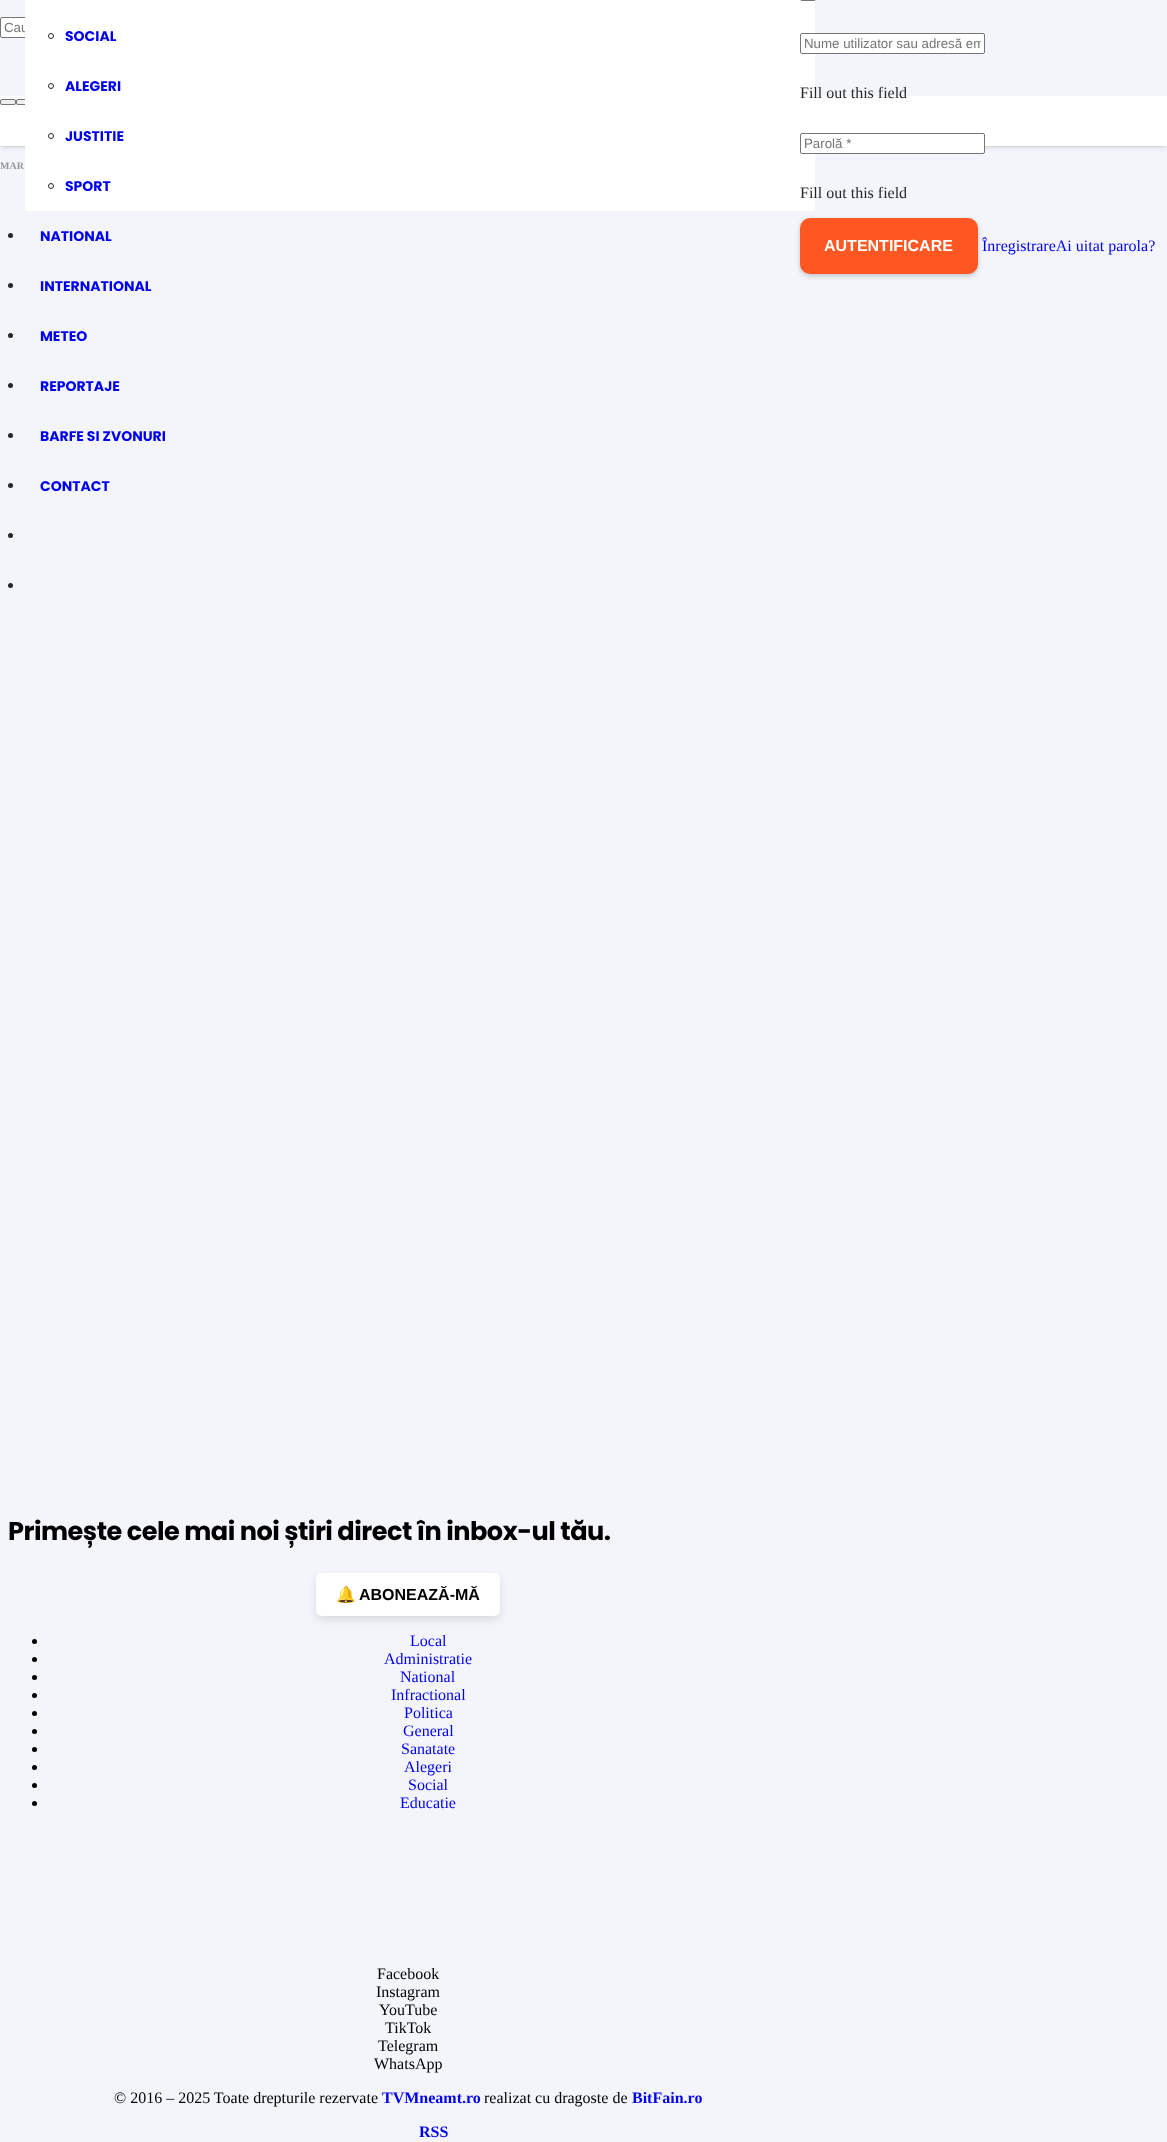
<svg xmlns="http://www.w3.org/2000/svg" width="1167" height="2142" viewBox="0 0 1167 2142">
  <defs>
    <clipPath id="clip1"><rect x="804" y="36" width="177" height="15"/></clipPath>
  </defs>
  <rect width="100%" height="100%" fill="rgb(243,245,251)"/>
  <rect x="0.5" y="17.5" width="184" height="20" rx="1.5" fill="rgb(255,255,255)" stroke="rgb(118,118,118)"/>
  <text x="4" y="32" font-family="Liberation Sans" font-size="13.3" fill="rgb(117,117,117)">Cau</text>
  <rect x="1" y="99" width="1165" height="48" fill="rgba(0,0,0,0.05)" filter="blur(0.5px)"/>
  <rect x="1" y="100" width="1165" height="48" fill="rgba(0,0,0,0.1)" filter="blur(2.5px)"/>
  <rect x="0" y="96" width="1167" height="50" fill="rgb(255,255,255)"/>
  <rect x="0.5" y="99.5" width="15" height="5" rx="1.5" fill="rgb(239,239,239)" stroke="rgb(118,118,118)"/>
  <rect x="16.5" y="99.5" width="15" height="5" rx="1.5" fill="rgb(239,239,239)" stroke="rgb(118,118,118)"/>
  <text x="0" y="169" font-family="Liberation Serif" font-size="10" font-weight="bold" fill="rgb(148,151,153)">MAR</text>
  <rect x="25" y="0" width="790" height="211" fill="rgb(255,255,255)"/>
  <circle cx="51" cy="36" r="2.5" fill="none" stroke="rgb(37,40,43)"/>
  <text x="65" y="41" font-family="Poppins" font-size="14" font-weight="bold" fill="rgb(0,0,238)">SOCIAL</text>
  <circle cx="51" cy="86" r="2.5" fill="none" stroke="rgb(37,40,43)"/>
  <text x="65" y="91" font-family="Poppins" font-size="14" font-weight="bold" fill="rgb(0,0,238)">ALEGERI</text>
  <circle cx="51" cy="136" r="2.5" fill="none" stroke="rgb(37,40,43)"/>
  <text x="65" y="141" font-family="Poppins" font-size="14" font-weight="bold" fill="rgb(0,0,238)">JUSTITIE</text>
  <circle cx="51" cy="186" r="2.5" fill="none" stroke="rgb(37,40,43)"/>
  <text x="65" y="191" font-family="Poppins" font-size="14" font-weight="bold" fill="rgb(0,0,238)">SPORT</text>
  <circle cx="10.5" cy="235.5" r="2.5" fill="rgb(37,40,43)"/>
  <text x="40" y="241" font-family="Poppins" font-size="14" font-weight="bold" fill="rgb(0,0,238)">NATIONAL</text>
  <circle cx="10.5" cy="285.5" r="2.5" fill="rgb(37,40,43)"/>
  <text x="40" y="291" font-family="Poppins" font-size="14" font-weight="bold" fill="rgb(0,0,238)">INTERNATIONAL</text>
  <circle cx="10.5" cy="335.5" r="2.5" fill="rgb(37,40,43)"/>
  <text x="40" y="341" font-family="Poppins" font-size="14" font-weight="bold" fill="rgb(0,0,238)">METEO</text>
  <circle cx="10.5" cy="385.5" r="2.5" fill="rgb(37,40,43)"/>
  <text x="40" y="391" font-family="Poppins" font-size="14" font-weight="bold" fill="rgb(0,0,238)">REPORTAJE</text>
  <circle cx="10.5" cy="435.5" r="2.5" fill="rgb(37,40,43)"/>
  <text x="40" y="441" font-family="Poppins" font-size="14" font-weight="bold" fill="rgb(0,0,238)">BARFE SI ZVONURI</text>
  <circle cx="10.5" cy="485.5" r="2.5" fill="rgb(37,40,43)"/>
  <text x="40" y="491" font-family="Poppins" font-size="14" font-weight="bold" fill="rgb(0,0,238)">CONTACT</text>
  <circle cx="10.5" cy="535.5" r="2.5" fill="rgb(37,40,43)"/>
  <circle cx="10.5" cy="585.5" r="2.5" fill="rgb(37,40,43)"/>
  <rect x="800.5" y="-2.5" width="15" height="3" rx="1.5" fill="none" stroke="rgb(118,118,118)"/>
  <rect x="800.5" y="33.5" width="184" height="20" rx="1.5" fill="rgb(255,255,255)" stroke="rgb(118,118,118)"/>
  <g clip-path="url(#clip1)">
    <text x="804" y="48" font-family="Liberation Sans" font-size="13.3" fill="rgb(117,117,117)">Nume utilizator sau adresă em</text>
  </g>
  <text x="800" y="98" font-family="Liberation Serif" font-size="16" fill="rgb(37,40,43)">Fill out this field</text>
  <rect x="800.5" y="133.5" width="184" height="20" rx="1.5" fill="rgb(255,255,255)" stroke="rgb(118,118,118)"/>
  <text x="804" y="148" font-family="Liberation Sans" font-size="13.3" fill="rgb(117,117,117)">Parolă *</text>
  <text x="800" y="198" font-family="Liberation Serif" font-size="16" fill="rgb(37,40,43)">Fill out this field</text>
  <rect x="800" y="220" width="178" height="56" rx="10" fill="rgba(0,0,0,0.2)" filter="blur(2.5px)"/>
  <rect x="800" y="218" width="178" height="56" rx="10" fill="rgb(255,87,34)"/>
  <text x="824" y="251" font-family="Liberation Sans" font-size="16" font-weight="bold" fill="rgb(255,255,255)">AUTENTIFICARE</text>
  <text x="982" y="251" font-family="Liberation Serif" font-size="16" fill="rgb(0,0,238)">ÎnregistrareAi uitat parola?</text>
  <text x="8" y="1540" font-family="Poppins" font-size="25.6" font-weight="bold" letter-spacing="-0.5" fill="rgb(0,0,0)">Primește cele mai noi știri direct în inbox-ul tău.</text>
  <rect x="316" y="1577" width="184" height="43" rx="6" fill="rgba(0,0,0,0.1)" filter="blur(4px)"/>
  <rect x="316" y="1573" width="184" height="43" rx="6" fill="rgb(255,255,255)"/>
  <text x="336" y="1600" font-family="Noto Color Emoji" font-size="16" font-weight="bold" fill="rgb(0,0,0)">🔔</text>
  <text x="359" y="1600" font-family="Liberation Sans" font-size="16" font-weight="bold" fill="rgb(0,0,0)">ABONEAZĂ-MĂ</text>
  <circle cx="34.5" cy="1641.5" r="2.5" fill="rgb(0,0,0)"/>
  <text x="410" y="1646" font-family="Liberation Serif" font-size="16" fill="rgb(0,0,238)">Local</text>
  <circle cx="34.5" cy="1659.5" r="2.5" fill="rgb(0,0,0)"/>
  <text x="384" y="1664" font-family="Liberation Serif" font-size="16" fill="rgb(0,0,238)">Administratie</text>
  <circle cx="34.5" cy="1677.5" r="2.5" fill="rgb(0,0,0)"/>
  <text x="400" y="1682" font-family="Liberation Serif" font-size="16" fill="rgb(0,0,238)">National</text>
  <circle cx="34.5" cy="1695.5" r="2.5" fill="rgb(0,0,0)"/>
  <text x="391" y="1700" font-family="Liberation Serif" font-size="16" fill="rgb(0,0,238)">Infractional</text>
  <circle cx="34.5" cy="1713.5" r="2.5" fill="rgb(0,0,0)"/>
  <text x="404" y="1718" font-family="Liberation Serif" font-size="16" fill="rgb(0,0,238)">Politica</text>
  <circle cx="34.5" cy="1731.5" r="2.5" fill="rgb(0,0,0)"/>
  <text x="403" y="1736" font-family="Liberation Serif" font-size="16" fill="rgb(0,0,238)">General</text>
  <circle cx="34.5" cy="1749.5" r="2.5" fill="rgb(0,0,0)"/>
  <text x="401" y="1754" font-family="Liberation Serif" font-size="16" fill="rgb(0,0,238)">Sanatate</text>
  <circle cx="34.5" cy="1767.5" r="2.5" fill="rgb(0,0,0)"/>
  <text x="404" y="1772" font-family="Liberation Serif" font-size="16" fill="rgb(0,0,238)">Alegeri</text>
  <circle cx="34.5" cy="1785.5" r="2.5" fill="rgb(0,0,0)"/>
  <text x="408" y="1790" font-family="Liberation Serif" font-size="16" fill="rgb(0,0,238)">Social</text>
  <circle cx="34.5" cy="1803.5" r="2.5" fill="rgb(0,0,0)"/>
  <text x="400" y="1808" font-family="Liberation Serif" font-size="16" fill="rgb(0,0,238)">Educatie</text>
  <g font-family="Liberation Serif" font-size="16" fill="rgb(0,0,0)">
    <text x="377" y="1979">Facebook</text>
    <text x="376" y="1997">Instagram</text>
    <text x="379" y="2015">YouTube</text>
    <text x="385" y="2033">TikTok</text>
    <text x="378" y="2051">Telegram</text>
    <text x="374" y="2069">WhatsApp</text>
    <text x="114" y="2103">© 2016 – 2025 Toate drepturile rezervate</text>
  </g>
  <text x="382" y="2103" font-family="Liberation Serif" font-size="16" font-weight="bold" fill="rgb(0,0,238)">TVMneamt.ro</text>
  <text x="484" y="2103" font-family="Liberation Serif" font-size="16" fill="rgb(0,0,0)">realizat cu dragoste de</text>
  <g font-family="Liberation Serif" font-size="16" font-weight="bold" fill="rgb(0,0,238)">
    <text x="632" y="2103">BitFain.ro</text>
    <text x="419" y="2137">RSS</text>
  </g>
</svg>
